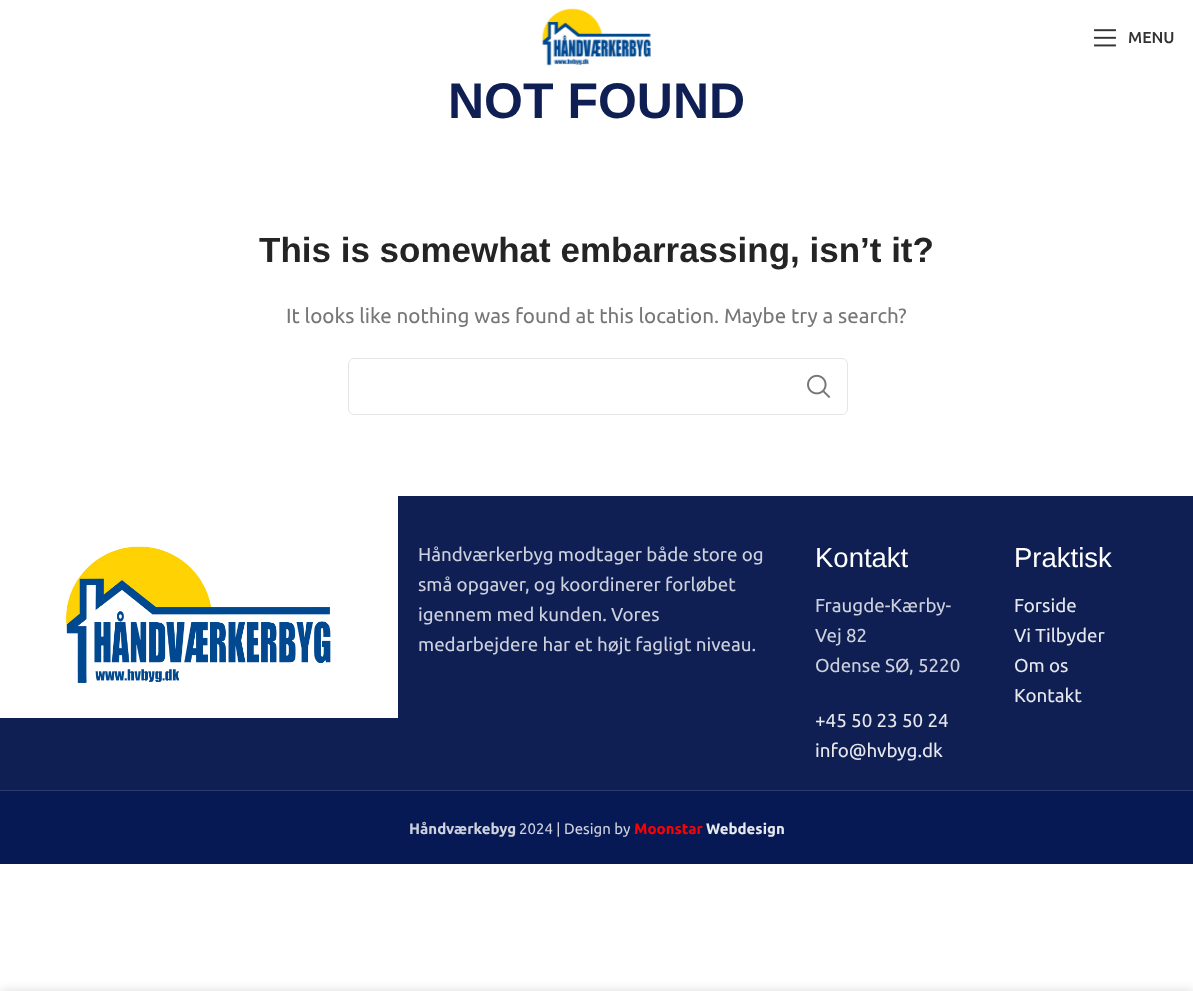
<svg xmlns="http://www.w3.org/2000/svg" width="1193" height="991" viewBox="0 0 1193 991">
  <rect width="100%" height="100%" fill="rgb(255,255,255)"/>
  <image x="541" y="8" width="110" height="58" href="pic1.png"/>
  <image x="1094" y="29" width="22" height="18" href="pic2.png"/>
  <text x="1128" y="43" font-family="Ubuntu" font-size="16" font-weight="500" fill="rgb(51,51,51)">MENU</text>
  <text x="448" y="118" font-family="Liberation Sans" font-size="50" font-weight="bold" fill="rgb(15,31,83)">NOT FOUND</text>
  <text x="259" y="262" font-family="Liberation Sans" font-size="35" font-weight="bold" fill="rgb(36,36,36)">This is somewhat embarrassing, isn’t it?</text>
  <text x="286" y="323" font-family="Ubuntu" font-size="20.6" fill="rgb(119,119,119)">It looks like nothing was found at this location. Maybe try a search?</text>
  <rect x="348.5" y="358.5" width="499" height="56" rx="5.5" fill="none" stroke="rgb(230,230,230)"/>
  <image x="807" y="374" width="24" height="24" href="pic3.png"/>
  <rect x="0" y="791" width="1193" height="73" fill="rgb(7,25,84)"/>
  <rect x="0" y="496" width="1193" height="294" fill="rgb(15,31,83)"/>
  <rect x="0" y="496" width="398" height="222" fill="rgb(255,255,255)"/>
  <image x="65" y="546" width="266" height="137" href="pic4.png"/>
  <g font-family="Ubuntu" font-size="18.75" fill="rgb(205,209,221)">
    <text>
      <tspan x="418" y="561">Håndværkerbyg modtager både store og</tspan>
      <tspan x="418" y="591">små opgaver, og koordinerer forløbet</tspan>
      <tspan x="418" y="621">igennem med kunden. Vores</tspan>
      <tspan x="418" y="651">medarbejdere har et højt fagligt niveau.</tspan>
    </text>
  </g>
  <text x="815" y="567" font-family="Liberation Sans" font-size="27.5" fill="rgb(255,255,255)">Kontakt</text>
  <g font-family="Ubuntu" font-size="18.75" fill="rgb(205,209,221)">
    <text>
      <tspan x="815" y="612">Fraugde-Kærby-</tspan>
      <tspan x="815" y="642">Vej 82</tspan>
      <tspan x="815" y="672">Odense SØ, 5220</tspan>
    </text>
  </g>
  <g font-family="Ubuntu" font-size="18.75" fill="rgb(230,232,238)">
    <text>
      <tspan x="815" y="727">+45 50 23 50 24</tspan>
      <tspan x="815" y="757">info@hvbyg.dk</tspan>
    </text>
  </g>
  <text x="1014" y="567" font-family="Liberation Sans" font-size="27.5" fill="rgb(255,255,255)">Praktisk</text>
  <g font-family="Ubuntu" font-size="18.75" fill="rgb(230,232,238)">
    <text>
      <tspan x="1014" y="612">Forside</tspan>
      <tspan x="1014" y="642">Vi Tilbyder</tspan>
      <tspan x="1014" y="672">Om os</tspan>
      <tspan x="1014" y="702">Kontakt</tspan>
    </text>
  </g>
  <rect x="0" y="790" width="1193" height="1" fill="rgb(44,60,110)"/>
  <text x="409" y="834" font-family="Ubuntu" font-size="15" font-weight="bold" fill="rgb(205,209,221)">Håndværkebyg</text>
  <text x="519" y="834" font-family="Ubuntu" font-size="15" fill="rgb(205,209,221)">2024 | Design by</text>
  <text x="634" y="834" font-family="Ubuntu" font-size="15" font-weight="bold" fill="rgb(255,0,0)">Moonstar</text>
  <text x="706" y="834" font-family="Ubuntu" font-size="15" font-weight="bold" fill="rgb(230,232,238)">Webdesign</text>
  <rect x="0" y="991" width="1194" height="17" fill="rgba(0,0,0,0.14)" filter="blur(5.5px)"/>
</svg>
